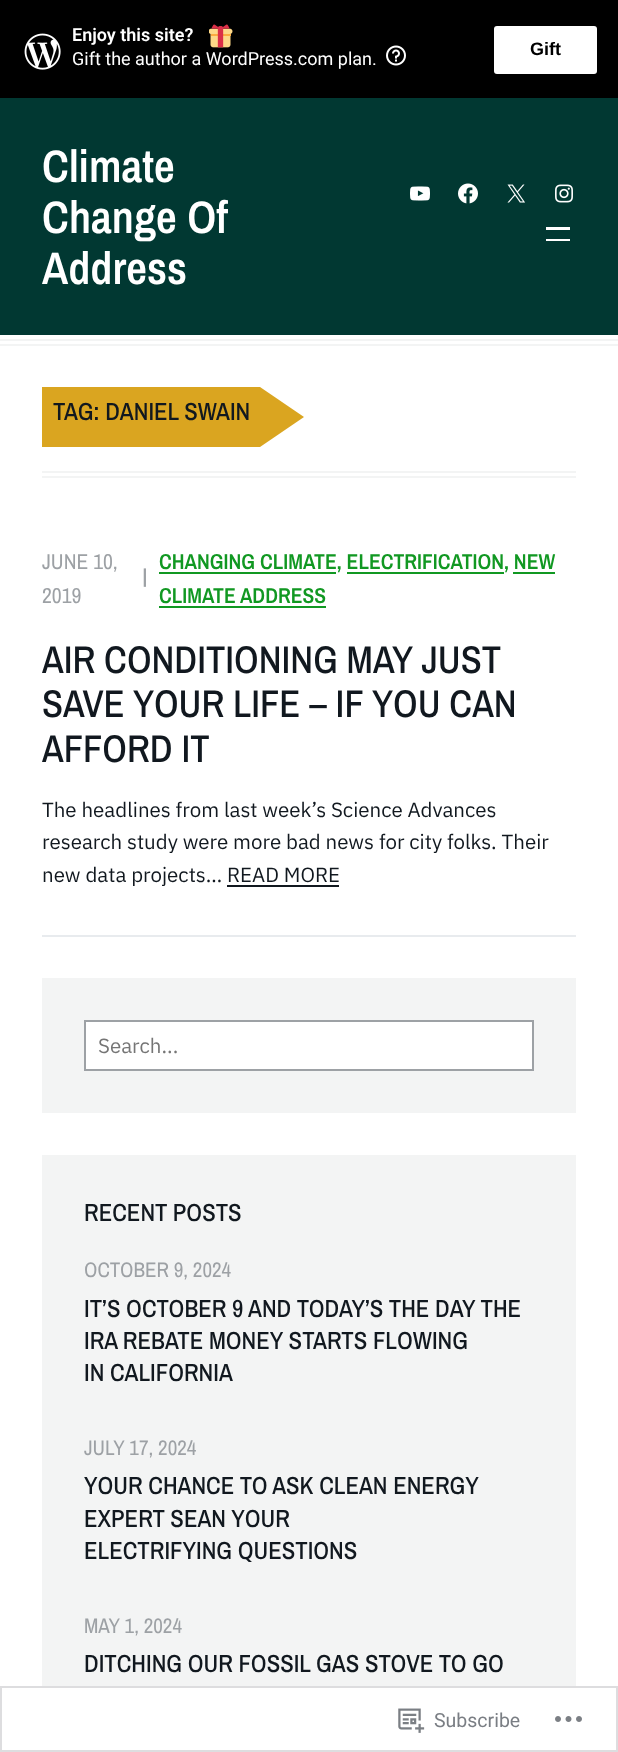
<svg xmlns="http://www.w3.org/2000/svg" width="618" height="1752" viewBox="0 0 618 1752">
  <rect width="100%" height="100%" fill="rgb(255,255,255)"/>
  <rect x="0" y="0" width="618" height="98" fill="rgb(0,0,0)"/>
  <image x="24" y="33" width="37" height="37" href="pic1.png"/>
  <text x="72" y="41" font-family="Roboto" font-size="18" font-weight="600" fill="rgb(255,255,255)">Enjoy this site?</text>
  <image x="209" y="24" width="24" height="24" href="pic2.png"/>
  <text x="72" y="65" font-family="Roboto" font-size="18" fill="rgb(255,255,255)">Gift the author a WordPress.com plan.</text>
  <image x="386" y="45" width="20" height="21" href="pic3.png"/>
  <rect x="494" y="26" width="103" height="48" rx="3" fill="rgb(255,255,255)"/>
  <text x="530" y="55" font-family="Liberation Sans" font-size="18" font-weight="bold" fill="rgb(0,0,0)">Gift</text>
  <rect x="0" y="98" width="618" height="237" fill="rgb(1,56,50)"/>
  <g font-family="Archivo Narrow" font-size="45.5" font-weight="600" fill="rgb(255,255,255)">
    <text>
      <tspan x="42" y="182">Climate</tspan>
      <tspan x="42" y="233">Change Of</tspan>
      <tspan x="42" y="284">Address</tspan>
    </text>
  </g>
  <image x="410" y="186" width="20" height="15" href="pic4.png"/>
  <image x="458" y="183" width="20" height="21" href="pic5.png"/>
  <image x="507" y="184" width="18" height="19" href="pic6.png"/>
  <image x="555" y="184" width="18" height="19" href="pic7.png"/>
  <rect x="546" y="227" width="24" height="3" fill="rgb(255,255,255)"/>
  <rect x="546" y="239" width="24" height="2" fill="rgb(255,255,255)"/>
  <rect x="0" y="339" width="618" height="2" fill="rgb(243,244,244)"/>
  <rect x="0" y="344" width="618" height="2" fill="rgb(243,244,244)"/>
  <rect x="42" y="387" width="218" height="60" fill="rgb(218,165,32)"/>
  <text x="53" y="420" font-family="Archivo Narrow" font-size="24.75" font-weight="500" fill="rgb(17,24,31)">TAG: DANIEL SWAIN</text>
  <path d="M260 447V387L304 417Z" fill="rgb(218,165,32)"/>
  <rect x="42" y="471" width="534" height="2" fill="rgb(243,244,244)"/>
  <rect x="42" y="476" width="534" height="2" fill="rgb(243,244,244)"/>
  <rect x="42" y="935" width="534" height="2" fill="rgb(232,235,238)"/>
  <g font-family="Archivo Narrow" font-size="21.6" fill="rgb(157,161,165)">
    <text>
      <tspan x="42" y="569">JUNE 10,</tspan>
      <tspan x="42" y="603">2019</tspan>
    </text>
  </g>
  <text x="141" y="584" font-family="IBM Plex Sans" font-size="20.5" font-weight="600" fill="rgb(157,161,165)">|</text>
  <rect x="159" y="572" width="177" height="2" fill="rgb(17,152,34)"/>
  <text x="159" y="569" font-family="Archivo Narrow" font-size="21.6" font-weight="600" fill="rgb(17,152,34)">CHANGING CLIMATE, ELECTRIFICATION, NEW</text>
  <rect x="347" y="572" width="157" height="2" fill="rgb(17,152,34)"/>
  <text x="159" y="603" font-family="Archivo Narrow" font-size="21.6" font-weight="600" fill="rgb(17,152,34)">CLIMATE ADDRESS</text>
  <rect x="513" y="572" width="42" height="2" fill="rgb(17,152,34)"/>
  <rect x="159" y="606" width="167" height="2" fill="rgb(17,152,34)"/>
  <g font-family="Archivo Narrow" font-size="38.6" font-weight="500" fill="rgb(17,24,31)">
    <text>
      <tspan x="42" y="673">AIR CONDITIONING MAY JUST</tspan>
      <tspan x="42" y="717">SAVE YOUR LIFE – IF YOU CAN</tspan>
      <tspan x="42" y="762">AFFORD IT</tspan>
    </text>
  </g>
  <g font-family="IBM Plex Sans" font-size="20.5" fill="rgb(17,24,31)">
    <text>
      <tspan x="42" y="817">The headlines from last week’s Science Advances</tspan>
      <tspan x="42" y="849">research study were more bad news for city folks. Their</tspan>
      <tspan x="42" y="882">new data projects…</tspan>
    </text>
    <text x="227" y="882">READ MORE</text>
  </g>
  <rect x="227" y="885" width="112" height="2" fill="rgb(17,24,31)"/>
  <rect x="42" y="978" width="534" height="135" fill="rgb(243,244,244)"/>
  <rect x="85" y="1021" width="448" height="49" fill="rgb(255,255,255)" stroke="rgb(157,161,165)" stroke-width="2"/>
  <text x="98" y="1053" font-family="IBM Plex Sans" font-size="20.5" fill="rgb(117,117,117)">Search...</text>
  <rect x="42" y="1155" width="534" height="531" fill="rgb(243,244,244)"/>
  <text x="84" y="1221" font-family="Archivo Narrow" font-size="24.75" font-weight="500" fill="rgb(17,24,31)">RECENT POSTS</text>
  <text x="84" y="1277" font-family="Archivo Narrow" font-size="21" fill="rgb(157,161,165)">OCTOBER 9, 2024</text>
  <g font-family="Archivo Narrow" font-size="24.75" font-weight="500" fill="rgb(17,24,31)">
    <text>
      <tspan x="84" y="1317">IT’S OCTOBER 9 AND TODAY’S THE DAY THE</tspan>
      <tspan x="84" y="1349">IRA REBATE MONEY STARTS FLOWING</tspan>
      <tspan x="84" y="1381">IN CALIFORNIA</tspan>
    </text>
  </g>
  <text x="84" y="1455" font-family="Archivo Narrow" font-size="21" fill="rgb(157,161,165)">JULY 17, 2024</text>
  <g font-family="Archivo Narrow" font-size="24.75" font-weight="500" fill="rgb(17,24,31)">
    <text>
      <tspan x="84" y="1494">YOUR CHANCE TO ASK CLEAN ENERGY</tspan>
      <tspan x="84" y="1527">EXPERT SEAN YOUR</tspan>
      <tspan x="84" y="1559">ELECTRIFYING QUESTIONS</tspan>
    </text>
  </g>
  <text x="84" y="1633" font-family="Archivo Narrow" font-size="21" fill="rgb(157,161,165)">MAY 1, 2024</text>
  <text x="84" y="1672" font-family="Archivo Narrow" font-size="24.75" font-weight="500" fill="rgb(17,24,31)">DITCHING OUR FOSSIL GAS STOVE TO GO</text>
  <rect x="1" y="1687" width="616" height="64" fill="none" stroke="rgba(220,220,222,0.98)" stroke-width="2"/>
  <image x="398" y="1708" width="27" height="25" href="pic8.png"/>
  <text x="434" y="1727" font-family="Roboto" font-size="19.5" fill="rgb(122,126,132)">Subscribe</text>
  <image x="555" y="1716" width="27" height="6" href="pic9.png"/>
</svg>
